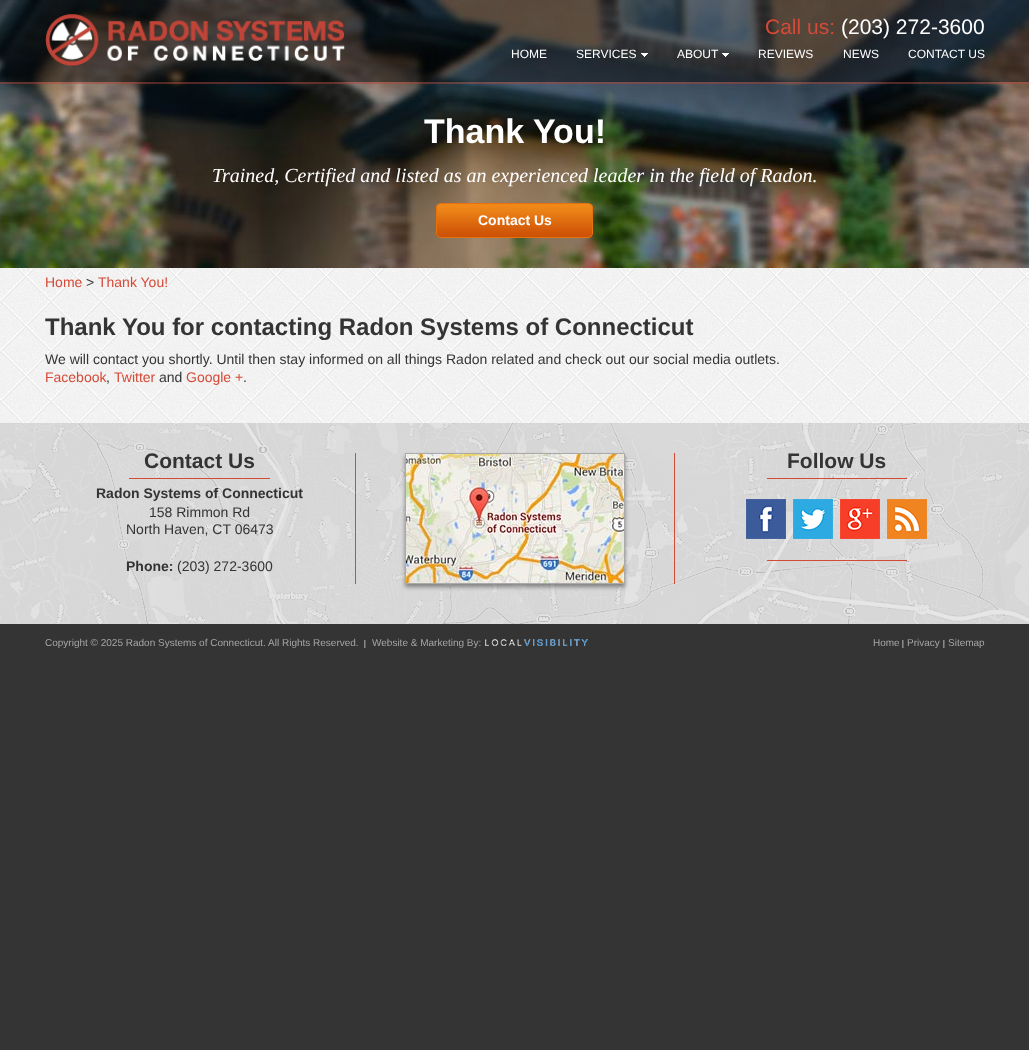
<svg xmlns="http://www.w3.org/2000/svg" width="1029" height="1050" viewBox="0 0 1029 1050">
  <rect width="100%" height="100%" fill="rgb(52,52,52)"/>
  <image x="0" y="268" width="1029" height="155" href="pic1.png"/>
  <image x="0" y="0" width="1029" height="268" href="pic5.png"/>
  <rect x="0" y="0" width="1029" height="82" fill="rgba(0,0,0,0.45)"/>
  <image x="45" y="14" width="300" height="52" href="pic2.png"/>
  <rect x="0" y="82" width="1029" height="2" fill="rgba(182,68,56,0.45)"/>
  <text x="765" y="34" font-family="Liberation Sans" font-size="21" fill="rgb(213,74,55)">Call us:</text>
  <text x="841" y="34" font-family="Liberation Sans" font-size="21" fill="rgb(255,255,255)">(203) 272-3600</text>
  <g font-family="Liberation Sans" font-size="12" fill="rgb(255,255,255)">
    <text x="511" y="58">HOME</text>
    <text x="576" y="58">SERVICES</text>
  </g>
  <image x="641" y="53" width="7" height="4" href="pic3.png"/>
  <text x="677" y="58" font-family="Liberation Sans" font-size="12" fill="rgb(255,255,255)">ABOUT</text>
  <image x="722" y="53" width="7" height="4" href="pic4.png"/>
  <g font-family="Liberation Sans" font-size="12" fill="rgb(255,255,255)">
    <text x="758" y="58">REVIEWS</text>
    <text x="843" y="58">NEWS</text>
    <text x="908" y="58">CONTACT US</text>
  </g>
  <text x="424" y="143" font-family="Liberation Sans" font-size="34" font-weight="bold" fill="rgb(255,255,255)">Thank You!</text>
  <text x="212" y="182" font-family="Liberation Serif" font-size="20" font-style="italic" fill="rgb(255,255,255)">Trained, Certified and listed as an experienced leader in the field of Radon.</text>
  <image x="436" y="204" width="157" height="34" href="pic6.png"/>
  <rect x="436.5" y="203.5" width="156" height="34" rx="4.5" fill="none" stroke="rgb(229,114,12)"/>
  <text x="478" y="225" font-family="Liberation Sans" font-size="14" font-weight="bold" fill="rgb(255,255,255)">Contact Us</text>
  <text x="45" y="287" font-family="Liberation Sans" font-size="14" fill="rgb(213,74,55)">Home</text>
  <text x="86" y="287" font-family="Liberation Sans" font-size="14" fill="rgb(52,52,52)">&gt;</text>
  <text x="98" y="287" font-family="Liberation Sans" font-size="14" fill="rgb(213,74,55)">Thank You!</text>
  <text x="45" y="335" font-family="Liberation Sans" font-size="24" font-weight="bold" fill="rgb(52,52,52)">Thank You for contacting Radon Systems of Connecticut</text>
  <text x="45" y="364" font-family="Liberation Sans" font-size="14" fill="rgb(52,52,52)">We will contact you shortly. Until then stay informed on all things Radon related and check out our social media outlets.</text>
  <text x="45" y="382" font-family="Liberation Sans" font-size="14" fill="rgb(213,74,55)">Facebook</text>
  <text x="106" y="382" font-family="Liberation Sans" font-size="14" fill="rgb(52,52,52)">,</text>
  <text x="114" y="382" font-family="Liberation Sans" font-size="14" fill="rgb(213,74,55)">Twitter</text>
  <text x="159" y="382" font-family="Liberation Sans" font-size="14" fill="rgb(52,52,52)">and</text>
  <text x="186" y="382" font-family="Liberation Sans" font-size="14" fill="rgb(213,74,55)">Google +</text>
  <text x="243" y="382" font-family="Liberation Sans" font-size="14" fill="rgb(52,52,52)">.</text>
  <image x="0" y="423" width="1029" height="201" href="pic7.png"/>
  <rect x="355" y="453" width="1" height="131" fill="rgb(213,74,55)"/>
  <rect x="129" y="478" width="141" height="1" fill="rgb(213,74,55)"/>
  <text x="144" y="468" font-family="Liberation Sans" font-size="21" font-weight="bold" fill="rgb(52,52,52)">Contact Us</text>
  <text x="96" y="498" font-family="Liberation Sans" font-size="14" font-weight="bold" fill="rgb(52,52,52)">Radon Systems of Connecticut</text>
  <g font-family="Liberation Sans" font-size="14" fill="rgb(52,52,52)">
    <text x="149" y="517">158 Rimmon Rd</text>
    <text x="126" y="534">North Haven, CT 06473</text>
  </g>
  <text x="126" y="571" font-family="Liberation Sans" font-size="14" font-weight="bold" fill="rgb(52,52,52)">Phone:</text>
  <text x="177" y="571" font-family="Liberation Sans" font-size="14" fill="rgb(52,52,52)">(203) 272-3600</text>
  <rect x="405" y="456" width="220" height="131" fill="rgba(0,0,0,0.4)" filter="blur(2px)"/>
  <rect x="405.5" y="453.5" width="219" height="130" fill="none" stroke="rgb(170,170,170)"/>
  <image x="406" y="454" width="218" height="129" href="pic8.png"/>
  <rect x="674" y="453" width="1" height="131" fill="rgb(213,74,55)"/>
  <rect x="767" y="478" width="140" height="1" fill="rgb(213,74,55)"/>
  <text x="787" y="468" font-family="Liberation Sans" font-size="21" font-weight="bold" fill="rgb(52,52,52)">Follow Us</text>
  <image x="746" y="499" width="40" height="40" href="pic9.png"/>
  <image x="793" y="499" width="40" height="40" href="pic10.png"/>
  <image x="840" y="499" width="40" height="40" href="pic11.png"/>
  <image x="887" y="499" width="40" height="40" href="pic12.png"/>
  <rect x="767" y="560" width="140" height="1" fill="rgb(213,74,55)"/>
  <text x="45" y="646" font-family="Liberation Sans" font-size="10" fill="rgb(166,166,166)">Copyright © 2025 Radon Systems of Connecticut. All Rights Reserved.</text>
  <image x="364" y="640" width="2" height="8" href="pic13.png"/>
  <text x="372" y="646" font-family="Liberation Sans" font-size="10" fill="rgb(166,166,166)">Website &amp; Marketing By:</text>
  <image x="485" y="639" width="103" height="7" href="pic14.png"/>
  <text x="873" y="646" font-family="Liberation Sans" font-size="10" fill="rgb(166,166,166)">Home</text>
  <image x="902" y="640" width="2" height="8" href="pic15.png"/>
  <text x="907" y="646" font-family="Liberation Sans" font-size="10" fill="rgb(166,166,166)">Privacy</text>
  <image x="943" y="640" width="2" height="8" href="pic15.png"/>
  <text x="948" y="646" font-family="Liberation Sans" font-size="10" fill="rgb(166,166,166)">Sitemap</text>
</svg>
